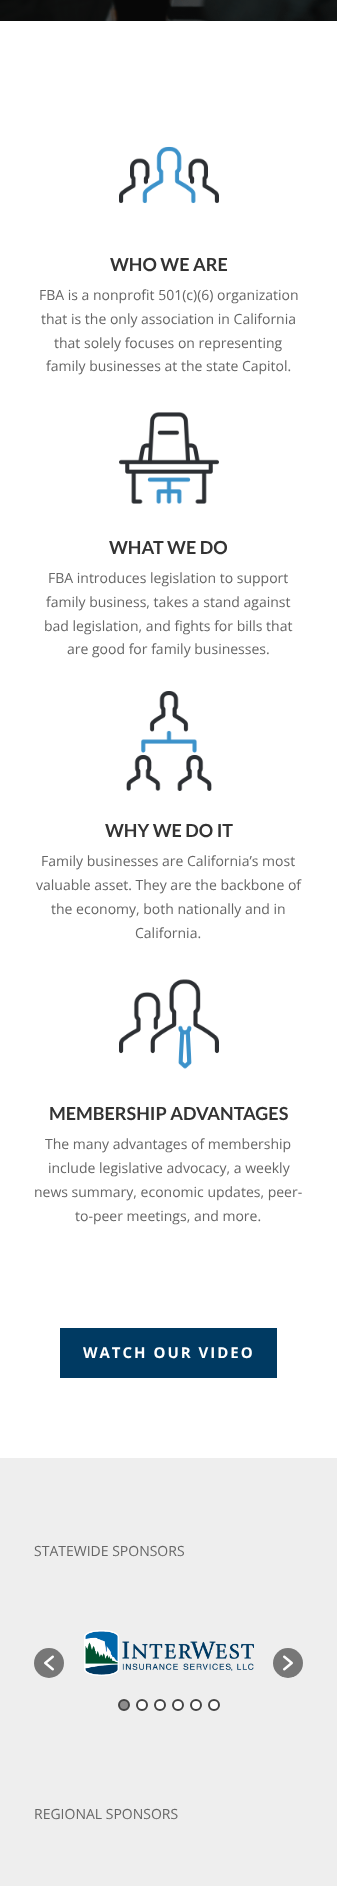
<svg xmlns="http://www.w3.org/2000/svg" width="337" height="1886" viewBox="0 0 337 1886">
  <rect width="100%" height="100%" fill="rgb(255,255,255)"/>
  <image x="0" y="0" width="337" height="21" href="pic1.png"/>
  <image x="119" y="146" width="100" height="58" href="pic2.png"/>
  <text x="110" y="271" font-family="Lato" font-size="18" font-weight="bold" fill="rgb(51,51,51)">WHO WE ARE</text>
  <g font-family="Open Sans" font-size="14" fill="rgb(102,102,102)">
    <text x="39" y="300">FBA is a nonprofit 501(c)(6) organization</text>
    <text x="41" y="324">that is the only association in California</text>
    <text x="54" y="348">that solely focuses on representing</text>
    <text x="46" y="371">family businesses at the state Capitol.</text>
  </g>
  <image x="119" y="412" width="100" height="92" href="pic3.png"/>
  <text x="109" y="554" font-family="Lato" font-size="18" font-weight="bold" fill="rgb(51,51,51)">WHAT WE DO</text>
  <g font-family="Open Sans" font-size="14" fill="rgb(102,102,102)">
    <text x="48" y="583">FBA introduces legislation to support</text>
    <text x="46" y="607">family business, takes a stand against</text>
    <text x="44" y="631">bad legislation, and fights for bills that</text>
    <text x="67" y="654">are good for family businesses.</text>
  </g>
  <image x="126" y="691" width="86" height="100" href="pic4.png"/>
  <text x="105" y="837" font-family="Lato" font-size="18" font-weight="bold" fill="rgb(51,51,51)">WHY WE DO IT</text>
  <g font-family="Open Sans" font-size="14" fill="rgb(102,102,102)">
    <text x="41" y="866">Family businesses are California’s most</text>
    <text x="36" y="890">valuable asset. They are the backbone of</text>
    <text x="51" y="914">the economy, both nationally and in</text>
    <text x="135" y="938">California.</text>
  </g>
  <image x="119" y="979" width="100" height="90" href="pic5.png"/>
  <text x="49" y="1120" font-family="Lato" font-size="18" font-weight="bold" fill="rgb(51,51,51)">MEMBERSHIP ADVANTAGES</text>
  <g font-family="Open Sans" font-size="14" fill="rgb(102,102,102)">
    <text x="45" y="1149">The many advantages of membership</text>
    <text x="48" y="1173">include legislative advocacy, a weekly</text>
    <text x="34" y="1197">news summary, economic updates, peer-</text>
    <text x="75" y="1221">to-peer meetings, and more.</text>
  </g>
  <rect x="60" y="1328" width="217" height="50" fill="rgb(0,58,98)"/>
  <text x="83" y="1358" font-family="Open Sans" font-size="15" font-weight="bold" letter-spacing="2" fill="rgb(255,255,255)">WATCH OUR VIDEO</text>
  <rect x="0" y="1458" width="337" height="428" fill="rgb(238,238,238)"/>
  <text x="34" y="1556" font-family="Open Sans" font-size="14" fill="rgb(102,102,102)">STATEWIDE SPONSORS</text>
  <circle cx="49" cy="1663" r="15" fill="rgb(119,119,119)"/>
  <image x="44" y="1655" width="10" height="16" href="pic6.png"/>
  <image x="84" y="1630" width="170" height="46" href="pic7.png"/>
  <circle cx="288" cy="1663" r="15" fill="rgb(119,119,119)"/>
  <image x="283" y="1655" width="10" height="16" href="pic8.png"/>
  <circle cx="124" cy="1705" r="5" fill="rgb(141,140,140)" stroke="rgb(68,68,68)" stroke-width="2"/>
  <circle cx="142" cy="1705" r="5" fill="rgb(255,255,255)" stroke="rgb(68,68,68)" stroke-width="2"/>
  <circle cx="160" cy="1705" r="5" fill="rgb(255,255,255)" stroke="rgb(68,68,68)" stroke-width="2"/>
  <circle cx="178" cy="1705" r="5" fill="rgb(255,255,255)" stroke="rgb(68,68,68)" stroke-width="2"/>
  <circle cx="196" cy="1705" r="5" fill="rgb(255,255,255)" stroke="rgb(68,68,68)" stroke-width="2"/>
  <circle cx="214" cy="1705" r="5" fill="rgb(255,255,255)" stroke="rgb(68,68,68)" stroke-width="2"/>
  <text x="34" y="1819" font-family="Open Sans" font-size="14" fill="rgb(102,102,102)">REGIONAL SPONSORS</text>
</svg>
